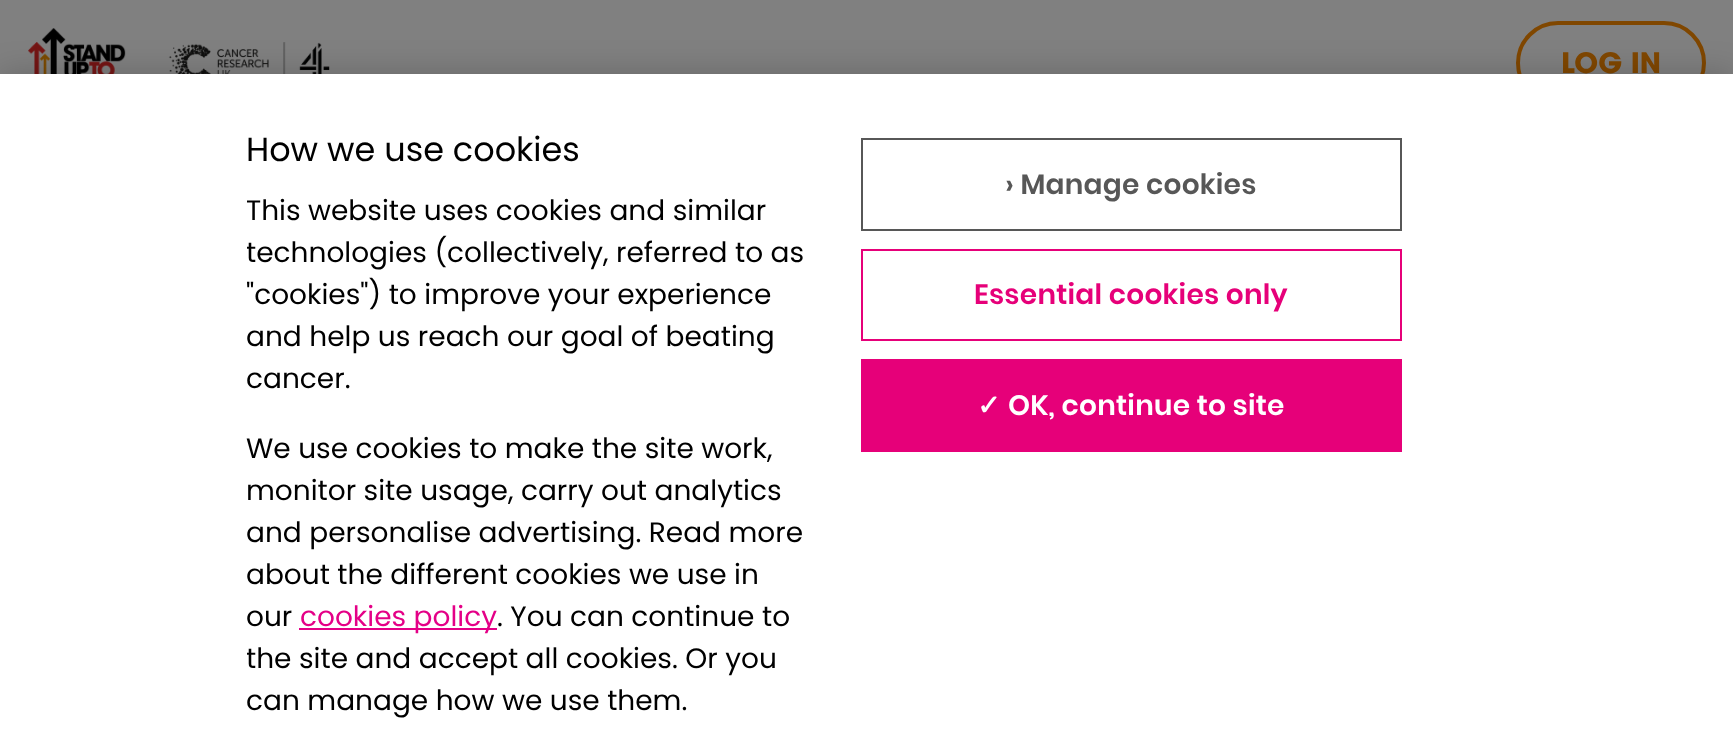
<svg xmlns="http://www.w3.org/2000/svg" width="1733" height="733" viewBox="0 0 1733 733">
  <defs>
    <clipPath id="clip1"><rect x="247" y="130" width="558" height="603"/></clipPath>
  </defs>
  <rect width="100%" height="100%" fill="rgb(128,128,128)"/>
  <image x="28" y="28" width="302" height="46" href="pic1.png"/>
  <rect x="1518" y="23" width="186" height="80" rx="40" fill="none" stroke="rgb(128,71,0)" stroke-width="4"/>
  <text x="1561" y="73" font-family="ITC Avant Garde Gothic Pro" font-size="28" font-weight="bold" fill="rgb(128,71,0)">LOG IN</text>
  <rect x="0" y="74" width="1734" height="659" fill="rgba(0,0,0,0.2)" filter="blur(16px)"/>
  <rect x="0" y="74" width="1733" height="659" fill="rgb(255,255,255)"/>
  <text x="246" y="161" font-family="Poppins" font-size="33.5" fill="rgb(0,0,0)">How we use cookies</text>
  <g clip-path="url(#clip1)">
    <g font-family="Poppins" font-size="28" fill="rgb(0,0,0)">
      <text>
        <tspan x="246" y="220">This website uses cookies and similar</tspan>
        <tspan x="246" y="262">technologies (collectively, referred to as</tspan>
      </text>
    </g>
  </g>
  <g font-family="Poppins" font-size="28" fill="rgb(0,0,0)">
    <text>
      <tspan x="246" y="304">"cookies") to improve your experience</tspan>
      <tspan x="246" y="346">and help us reach our goal of beating</tspan>
      <tspan x="246" y="388">cancer.</tspan>
    </text>
    <text>
      <tspan x="246" y="458">We use cookies to make the site work,</tspan>
      <tspan x="246" y="500">monitor site usage, carry out analytics</tspan>
      <tspan x="246" y="542">and personalise advertising. Read more</tspan>
      <tspan x="246" y="584">about the different cookies we use in</tspan>
      <tspan x="246" y="626">our</tspan>
    </text>
  </g>
  <rect x="299" y="628" width="198" height="2" fill="rgb(228,0,135)"/>
  <text x="300" y="626" font-family="Poppins" font-size="28" fill="rgb(228,0,135)">cookies policy</text>
  <text x="497" y="626" font-family="Poppins" font-size="28" fill="rgb(0,0,0)">. You can continue to</text>
  <g clip-path="url(#clip1)">
    <text x="246" y="668" font-family="Poppins" font-size="28" fill="rgb(0,0,0)">the site and accept all cookies. Or you</text>
  </g>
  <text x="246" y="710" font-family="Poppins" font-size="28" fill="rgb(0,0,0)">can manage how we use them.</text>
  <rect x="862" y="139" width="539" height="91" fill="none" stroke="rgb(87,87,87)" stroke-width="2"/>
  <text x="1005" y="194" font-family="Poppins" font-size="28" font-weight="600" letter-spacing="0.25" fill="rgb(87,87,87)">› Manage cookies</text>
  <rect x="862" y="250" width="539" height="90" fill="none" stroke="rgb(230,0,121)" stroke-width="2"/>
  <text x="974" y="304" font-family="Poppins" font-size="28" font-weight="600" letter-spacing="0.25" fill="rgb(230,0,121)">Essential cookies only</text>
  <rect x="861" y="359" width="541" height="93" fill="rgb(230,0,121)"/>
  <text x="977" y="415" font-family="DejaVu Sans" font-size="28" font-weight="bold" letter-spacing="0.25" fill="rgb(255,255,255)">✓</text>
  <text x="1008" y="415" font-family="Poppins" font-size="28" font-weight="600" letter-spacing="0.25" fill="rgb(255,255,255)">OK, continue to site</text>
</svg>
